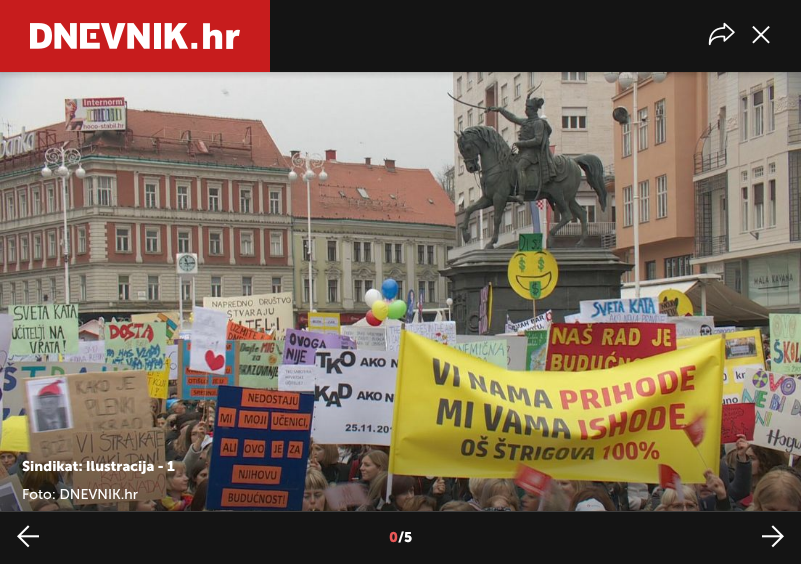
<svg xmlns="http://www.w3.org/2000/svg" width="801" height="564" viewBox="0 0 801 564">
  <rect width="100%" height="100%" fill="rgb(255,255,255)"/>
  <image x="0" y="72" width="801" height="439" href="pic4.png"/>
  <rect x="0" y="4" width="801" height="72" fill="rgba(0,0,0,0.1)" filter="blur(2px)"/>
  <rect x="270" y="0" width="531" height="72" fill="rgb(20,20,20)"/>
  <rect x="0" y="0" width="270" height="72" fill="rgb(199,28,29)"/>
  <image x="30" y="23" width="210" height="26" href="pic1.png"/>
  <image x="708" y="22" width="27" height="24" href="pic2.png"/>
  <image x="752" y="26" width="18" height="18" href="pic3.png"/>
  <text x="22" y="471" font-family="Museo Sans" font-size="14" fill="rgb(255,255,255)">Sindikat: Ilustracija - 1</text>
  <text x="22" y="499" font-family="'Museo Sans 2'" font-size="14" fill="rgb(255,255,255)">Foto: DNEVNIK.hr</text>
  <rect x="0" y="512" width="801" height="52" fill="rgb(20,20,20)"/>
  <rect x="0" y="511" width="801" height="1" fill="rgb(61,61,61)"/>
  <image x="17" y="525" width="22" height="23" href="pic5.png"/>
  <text x="389" y="542" font-family="Museo Sans" font-size="14" fill="rgb(233,88,88)">0</text>
  <text x="398" y="542" font-family="Museo Sans" font-size="14" fill="rgb(255,255,255)">/5</text>
  <image x="762" y="525" width="22" height="23" href="pic6.png"/>
</svg>
